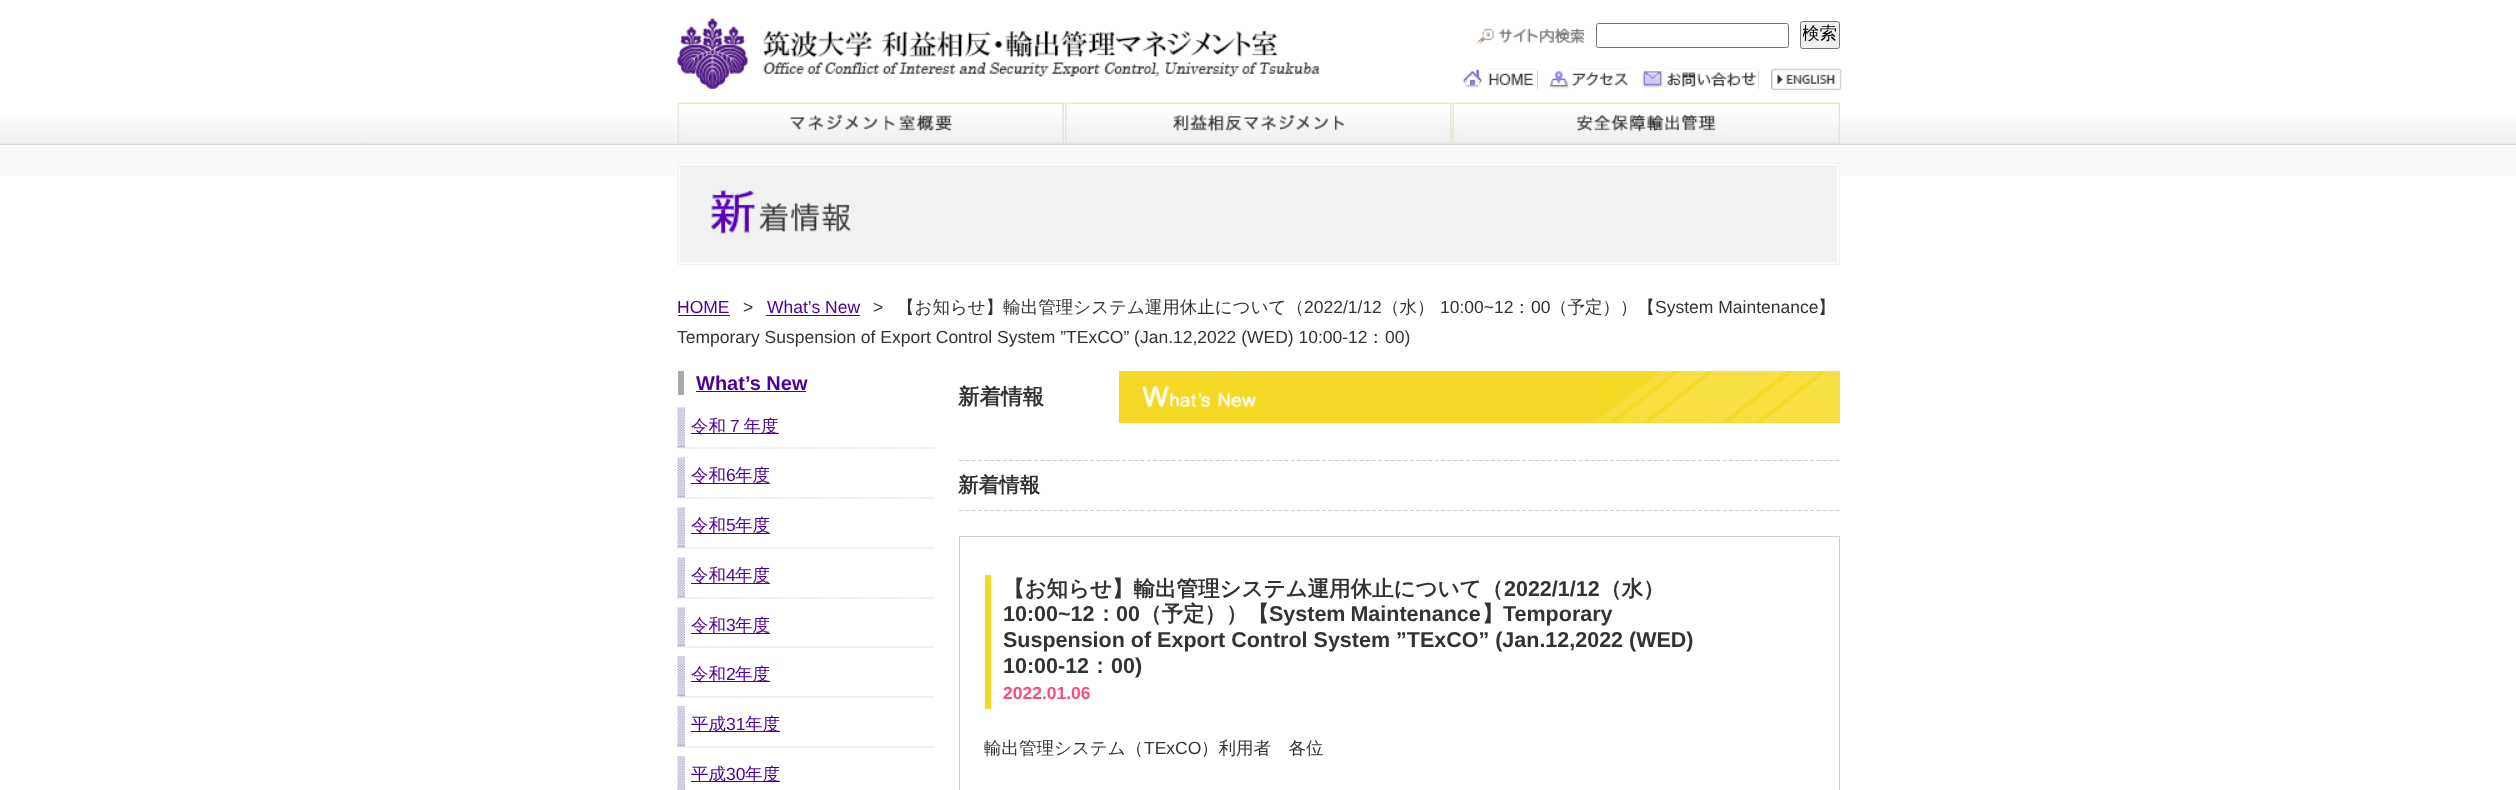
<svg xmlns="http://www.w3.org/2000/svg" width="2516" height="790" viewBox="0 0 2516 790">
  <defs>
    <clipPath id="clip1"><rect x="1803" y="24" width="35" height="22"/></clipPath>
  </defs>
  <rect width="100%" height="100%" fill="rgb(255,255,255)"/>
  <rect x="0" y="147" width="2516" height="29" fill="rgb(250,250,250)"/>
  <image x="0" y="119" width="2516" height="26" href="pic1.png"/>
  <image x="677" y="18" width="71" height="71" href="pic2.png"/>
  <image x="763" y="30" width="557" height="47" href="pic3.png"/>
  <image x="1476" y="27" width="109" height="17" href="pic4.png"/>
  <rect x="1596.5" y="23.5" width="192" height="24" rx="2" fill="none" stroke="rgb(118,118,118)"/>
  <rect x="1800.5" y="21.5" width="39" height="27" rx="2" fill="rgb(239,239,239)" stroke="rgb(118,118,118)"/>
  <g clip-path="url(#clip1)">
    <text x="1802" y="39" font-family="WenQuanYi Zen Hei" font-size="17.5" font-weight="500" fill="rgb(0,0,0)">検索</text>
  </g>
  <image x="1462" y="68" width="76" height="22" href="pic5.png"/>
  <image x="1483" y="69" width="55" height="21" href="pic6.png"/>
  <image x="1550" y="68" width="80" height="22" href="pic7.png"/>
  <image x="1569" y="69" width="61" height="21" href="pic8.png"/>
  <image x="1642" y="68" width="117" height="22" href="pic9.png"/>
  <image x="1642" y="69" width="117" height="21" href="pic10.png"/>
  <image x="1771" y="68" width="71" height="22" href="pic11.png"/>
  <image x="1771" y="69" width="70" height="21" href="pic12.png"/>
  <image x="677" y="102" width="387" height="42" href="pic13.png"/>
  <image x="677" y="102" width="387" height="42" href="pic14.png"/>
  <image x="1065" y="102" width="387" height="42" href="pic15.png"/>
  <image x="1065" y="102" width="387" height="42" href="pic16.png"/>
  <image x="1452" y="102" width="387" height="42" href="pic17.png"/>
  <image x="1452" y="102" width="388" height="42" href="pic18.png"/>
  <image x="677" y="162" width="1163" height="103" href="pic19.png"/>
  <text x="677" y="313" font-family="Liberation Sans" font-size="17.5" fill="rgb(73,0,157)">HOME</text>
  <rect x="678" y="315" width="52" height="1" fill="rgb(73,0,157)"/>
  <text x="743" y="313" font-family="Liberation Sans" font-size="17.5" fill="rgb(51,51,51)">&gt;</text>
  <text x="767" y="313" font-family="Liberation Sans" font-size="17.5" fill="rgb(73,0,157)">What’s New</text>
  <rect x="766" y="315" width="94" height="1" fill="rgb(73,0,157)"/>
  <text x="873" y="313" font-family="Liberation Sans" font-size="17.5" fill="rgb(51,51,51)">&gt;</text>
  <text x="897" y="313" font-family="WenQuanYi Zen Hei" font-size="17.5" font-weight="500" fill="rgb(51,51,51)">【お知らせ】輸出管理システム運用休止について（</text>
  <text x="1304" y="313" font-family="Liberation Sans" font-size="17.5" fill="rgb(51,51,51)">2022/1/12</text>
  <text x="1382" y="313" font-family="WenQuanYi Zen Hei" font-size="17.5" font-weight="500" fill="rgb(51,51,51)">（水）</text>
  <text x="1440" y="313" font-family="Liberation Sans" font-size="17.5" fill="rgb(51,51,51)">10:00~12</text>
  <text x="1513" y="313" font-family="WenQuanYi Zen Hei" font-size="17.5" font-weight="500" fill="rgb(51,51,51)">：</text>
  <text x="1531" y="313" font-family="Liberation Sans" font-size="17.5" fill="rgb(51,51,51)">00</text>
  <text x="1550" y="313" font-family="WenQuanYi Zen Hei" font-size="17.5" font-weight="500" fill="rgb(51,51,51)">（予定））【</text>
  <text x="1655" y="313" font-family="Liberation Sans" font-size="17.5" fill="rgb(51,51,51)">System Maintenance</text>
  <text x="1818" y="313" font-family="WenQuanYi Zen Hei" font-size="17.5" font-weight="500" fill="rgb(51,51,51)">】</text>
  <text x="677" y="343" font-family="Liberation Sans" font-size="17.5" fill="rgb(51,51,51)">Temporary Suspension of Export Control System ”TExCO” (Jan.12,2022 (WED) 10:00-12</text>
  <text x="1367" y="343" font-family="WenQuanYi Zen Hei" font-size="17.5" font-weight="500" fill="rgb(51,51,51)">：</text>
  <text x="1385" y="343" font-family="Liberation Sans" font-size="17.5" fill="rgb(51,51,51)">00)</text>
  <rect x="678" y="371" width="6" height="24" fill="rgb(170,170,170)"/>
  <text x="696" y="390" font-family="Liberation Sans" font-size="20" font-weight="bold" fill="rgb(73,0,157)">What’s New</text>
  <rect x="696" y="391" width="110" height="1" fill="rgb(73,0,157)"/>
  <image x="677" y="407" width="8" height="41" href="pic20.png"/>
  <path d="M677.5 448H934" fill="none" stroke="rgb(204,204,204)" stroke-width="1.2" stroke-dasharray="1.25 1.25"/>
  <rect x="691" y="433" width="88" height="1" fill="rgb(73,0,157)"/>
  <text x="691" y="432" font-family="WenQuanYi Zen Hei" font-size="17.5" font-weight="500" fill="rgb(73,0,157)">令和７年度</text>
  <image x="677" y="457" width="8" height="41" href="pic20.png"/>
  <path d="M677.5 498H934" fill="none" stroke="rgb(204,204,204)" stroke-width="1.2" stroke-dasharray="1.25 1.25"/>
  <rect x="691" y="483" width="79" height="1" fill="rgb(73,0,157)"/>
  <text x="691" y="481" font-family="WenQuanYi Zen Hei" font-size="17.5" font-weight="500" fill="rgb(73,0,157)">令和</text>
  <text x="726" y="481" font-family="Liberation Sans" font-size="17.5" fill="rgb(73,0,157)">6</text>
  <text x="735" y="481" font-family="WenQuanYi Zen Hei" font-size="17.5" font-weight="500" fill="rgb(73,0,157)">年度</text>
  <image x="677" y="507" width="8" height="41" href="pic20.png"/>
  <path d="M677.5 548H934" fill="none" stroke="rgb(204,204,204)" stroke-width="1.2" stroke-dasharray="1.25 1.25"/>
  <rect x="691" y="533" width="79" height="1" fill="rgb(73,0,157)"/>
  <text x="691" y="531" font-family="WenQuanYi Zen Hei" font-size="17.5" font-weight="500" fill="rgb(73,0,157)">令和</text>
  <text x="726" y="531" font-family="Liberation Sans" font-size="17.5" fill="rgb(73,0,157)">5</text>
  <text x="735" y="531" font-family="WenQuanYi Zen Hei" font-size="17.5" font-weight="500" fill="rgb(73,0,157)">年度</text>
  <image x="677" y="557" width="8" height="41" href="pic20.png"/>
  <path d="M677.5 598H934" fill="none" stroke="rgb(204,204,204)" stroke-width="1.2" stroke-dasharray="1.25 1.25"/>
  <rect x="691" y="583" width="79" height="1" fill="rgb(73,0,157)"/>
  <text x="691" y="581" font-family="WenQuanYi Zen Hei" font-size="17.5" font-weight="500" fill="rgb(73,0,157)">令和</text>
  <text x="726" y="581" font-family="Liberation Sans" font-size="17.5" fill="rgb(73,0,157)">4</text>
  <text x="735" y="581" font-family="WenQuanYi Zen Hei" font-size="17.5" font-weight="500" fill="rgb(73,0,157)">年度</text>
  <image x="677" y="607" width="8" height="40" href="pic21.png"/>
  <path d="M677.5 647H934" fill="none" stroke="rgb(204,204,204)" stroke-width="1.2" stroke-dasharray="1.25 1.25"/>
  <rect x="691" y="633" width="79" height="1" fill="rgb(73,0,157)"/>
  <text x="691" y="631" font-family="WenQuanYi Zen Hei" font-size="17.5" font-weight="500" fill="rgb(73,0,157)">令和</text>
  <text x="726" y="631" font-family="Liberation Sans" font-size="17.5" fill="rgb(73,0,157)">3</text>
  <text x="735" y="631" font-family="WenQuanYi Zen Hei" font-size="17.5" font-weight="500" fill="rgb(73,0,157)">年度</text>
  <image x="677" y="656" width="8" height="41" href="pic22.png"/>
  <path d="M677.5 697H934" fill="none" stroke="rgb(204,204,204)" stroke-width="1.2" stroke-dasharray="1.25 1.25"/>
  <rect x="691" y="681" width="79" height="1" fill="rgb(73,0,157)"/>
  <text x="691" y="680" font-family="WenQuanYi Zen Hei" font-size="17.5" font-weight="500" fill="rgb(73,0,157)">令和</text>
  <text x="726" y="680" font-family="Liberation Sans" font-size="17.5" fill="rgb(73,0,157)">2</text>
  <text x="735" y="680" font-family="WenQuanYi Zen Hei" font-size="17.5" font-weight="500" fill="rgb(73,0,157)">年度</text>
  <image x="677" y="706" width="8" height="41" href="pic22.png"/>
  <path d="M677.5 747H934" fill="none" stroke="rgb(204,204,204)" stroke-width="1.2" stroke-dasharray="1.25 1.25"/>
  <rect x="691" y="731" width="89" height="1" fill="rgb(73,0,157)"/>
  <text x="691" y="730" font-family="WenQuanYi Zen Hei" font-size="17.5" font-weight="500" fill="rgb(73,0,157)">平成</text>
  <text x="726" y="730" font-family="Liberation Sans" font-size="17.5" fill="rgb(73,0,157)">31</text>
  <text x="745" y="730" font-family="WenQuanYi Zen Hei" font-size="17.5" font-weight="500" fill="rgb(73,0,157)">年度</text>
  <image x="677" y="756" width="8" height="34" href="pic23.png"/>
  <rect x="691" y="781" width="89" height="1" fill="rgb(73,0,157)"/>
  <text x="691" y="780" font-family="WenQuanYi Zen Hei" font-size="17.5" font-weight="500" fill="rgb(73,0,157)">平成</text>
  <text x="726" y="780" font-family="Liberation Sans" font-size="17.5" fill="rgb(73,0,157)">30</text>
  <text x="745" y="780" font-family="WenQuanYi Zen Hei" font-size="17.5" font-weight="500" fill="rgb(73,0,157)">年度</text>
  <rect x="1119" y="371" width="721" height="52" fill="rgb(244,216,37)"/>
  <image x="1595" y="371" width="245" height="52" href="pic24.png"/>
  <image x="1141" y="386" width="116" height="22" href="pic25.png"/>
  <text x="958" y="404" font-family="WenQuanYi Zen Hei" font-size="21.5" font-weight="bold" fill="rgb(51,51,51)">新着情報</text>
  <path d="M959 460.5H1840" fill="none" stroke="rgb(204,204,204)" stroke-width="1.2" stroke-dasharray="3.75 2.51"/>
  <path d="M959 510.5H1840" fill="none" stroke="rgb(204,204,204)" stroke-width="1.2" stroke-dasharray="3.75 2.51"/>
  <text x="958" y="492" font-family="WenQuanYi Zen Hei" font-size="20.5" font-weight="bold" fill="rgb(51,51,51)">新着情報</text>
  <rect x="959.5" y="536.5" width="880" height="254" fill="none" stroke="rgb(204,204,204)"/>
  <rect x="985" y="575" width="6" height="134" fill="rgb(244,216,37)"/>
  <text x="1003" y="596" font-family="WenQuanYi Zen Hei" font-size="21.5" font-weight="bold" fill="rgb(51,51,51)">【お知らせ】輸出管理システム運用休止について（</text>
  <text x="1504" y="596" font-family="Liberation Sans" font-size="21.5" font-weight="bold" fill="rgb(51,51,51)">2022/1/12</text>
  <text x="1600" y="596" font-family="WenQuanYi Zen Hei" font-size="21.5" font-weight="bold" fill="rgb(51,51,51)">（水）</text>
  <text x="1003" y="621" font-family="Liberation Sans" font-size="21.5" font-weight="bold" fill="rgb(51,51,51)">10:00~12</text>
  <text x="1095" y="621" font-family="WenQuanYi Zen Hei" font-size="21.5" font-weight="bold" fill="rgb(51,51,51)">：</text>
  <text x="1116" y="621" font-family="Liberation Sans" font-size="21.5" font-weight="bold" fill="rgb(51,51,51)">00</text>
  <text x="1140" y="621" font-family="WenQuanYi Zen Hei" font-size="21.5" font-weight="bold" fill="rgb(51,51,51)">（予定））【</text>
  <text x="1269" y="621" word-spacing="-1" font-family="Liberation Sans" font-size="21.5" font-weight="bold" fill="rgb(51,51,51)">System Maintenance</text>
  <text x="1482" y="621" font-family="WenQuanYi Zen Hei" font-size="21.5" font-weight="bold" fill="rgb(51,51,51)">】</text>
  <g font-family="Liberation Sans" font-size="21.5" font-weight="bold" fill="rgb(51,51,51)">
    <text x="1503" y="621">Temporary</text>
    <text>
      <tspan x="1003" y="647">Suspension of Export Control System ”TExCO” (Jan.12,2022 (WED)</tspan>
      <tspan x="1003" y="673">10:00-12</tspan>
    </text>
  </g>
  <text x="1089" y="673" font-family="WenQuanYi Zen Hei" font-size="21.5" font-weight="bold" fill="rgb(51,51,51)">：</text>
  <text x="1111" y="673" font-family="Liberation Sans" font-size="21.5" font-weight="bold" fill="rgb(51,51,51)">00)</text>
  <text x="1003" y="699" font-family="Liberation Sans" font-size="17.5" font-weight="bold" fill="rgb(247,79,127)">2022.01.06</text>
  <text x="984" y="754" font-family="WenQuanYi Zen Hei" font-size="17.5" font-weight="500" fill="rgb(51,51,51)">輸出管理システム（</text>
  <text x="1144" y="754" font-family="Liberation Sans" font-size="17.5" fill="rgb(51,51,51)">TExCO</text>
  <text x="1201" y="754" font-family="WenQuanYi Zen Hei" font-size="17.5" font-weight="500" fill="rgb(51,51,51)">）利用者　各位</text>
</svg>
